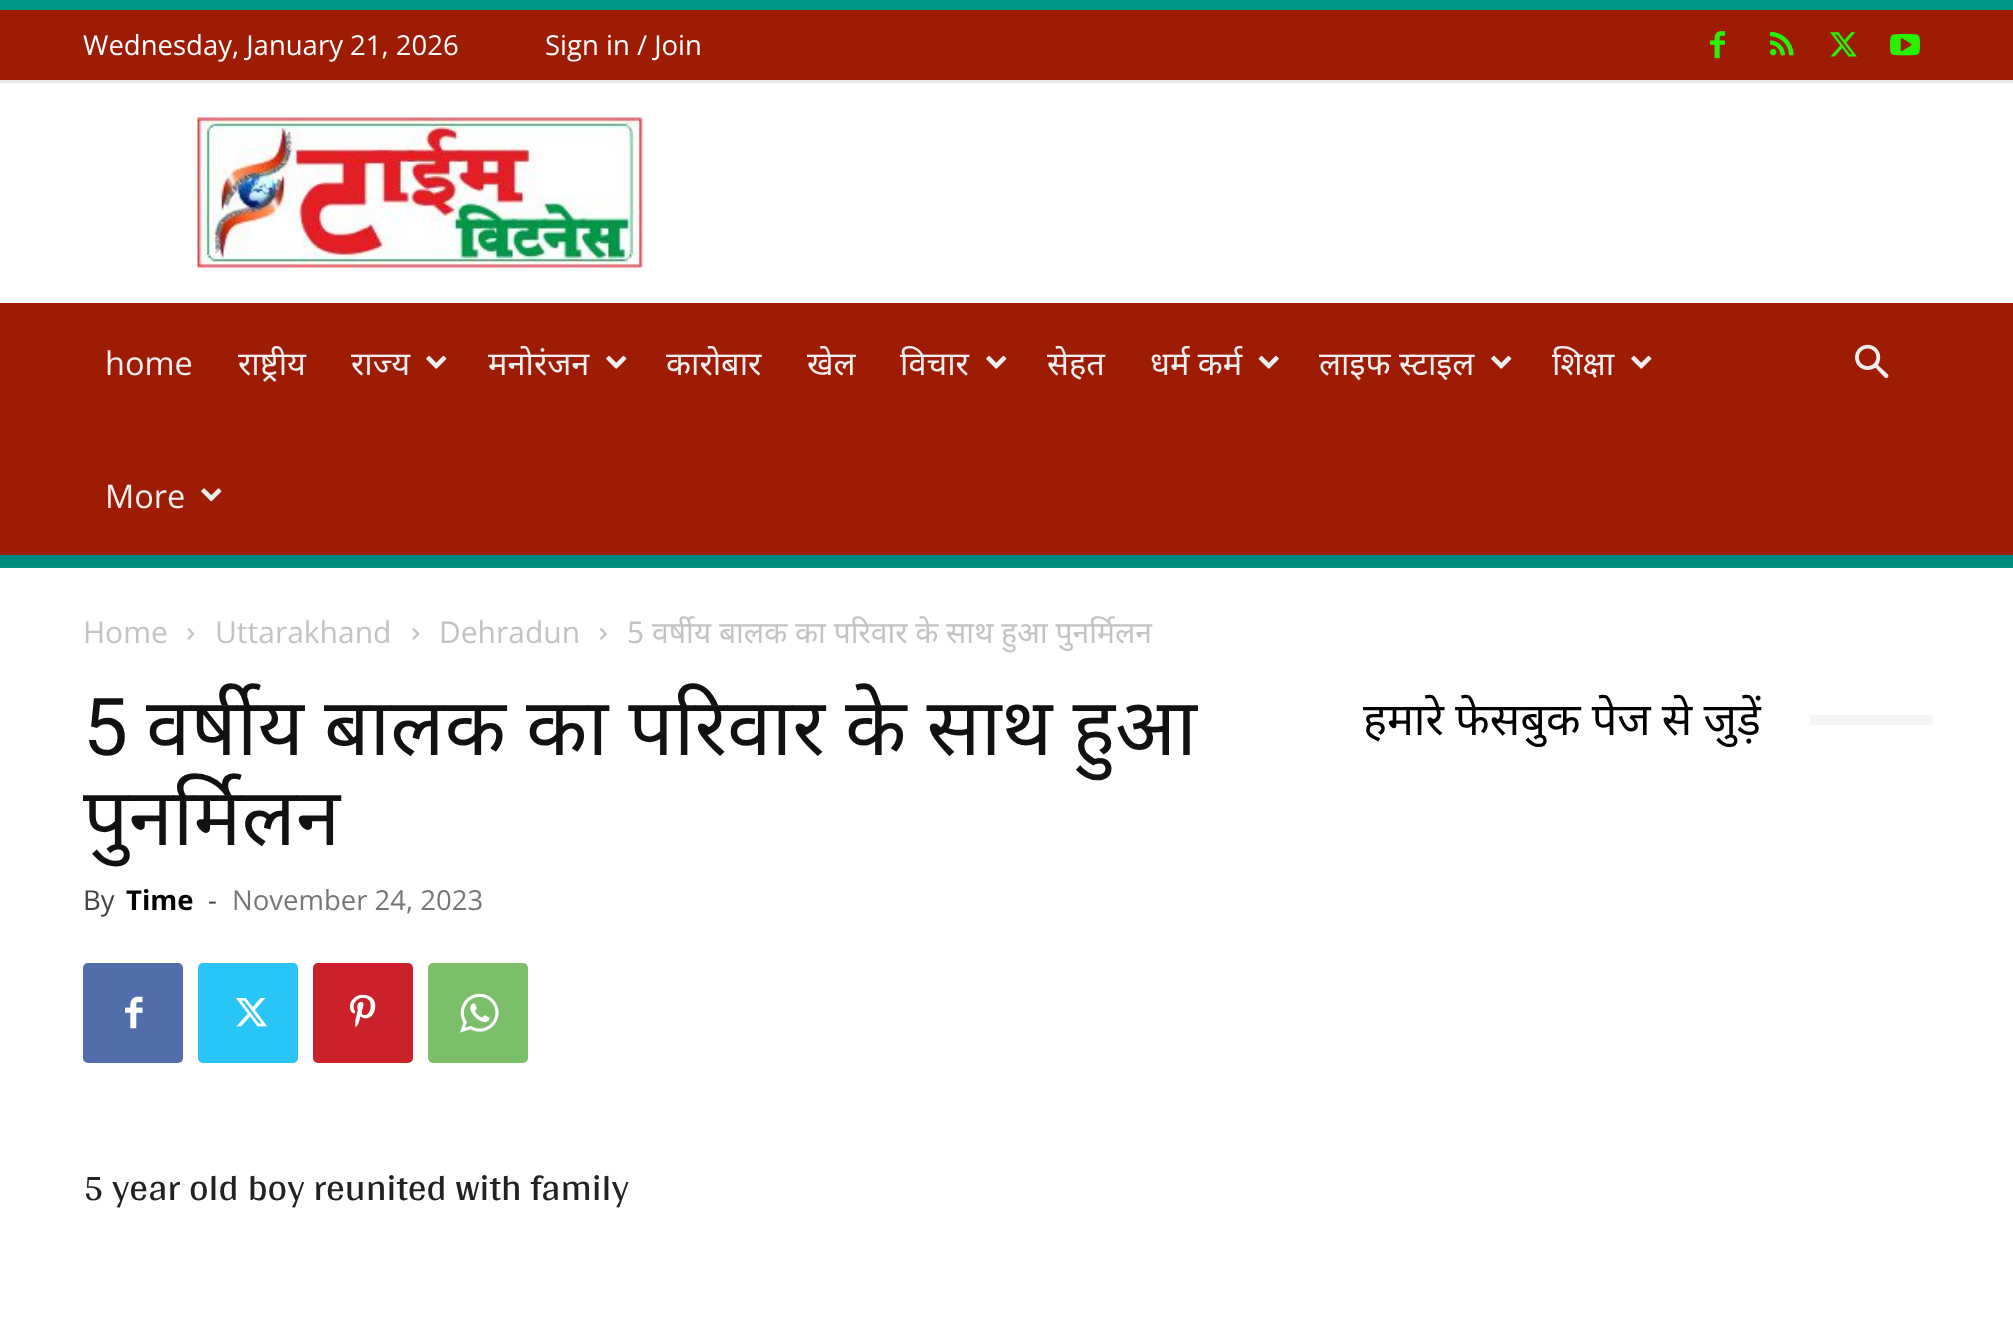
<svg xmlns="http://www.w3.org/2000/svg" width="2013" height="1328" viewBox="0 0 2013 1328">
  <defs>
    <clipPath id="clip1"><rect x="1363" y="683" width="570" height="72"/></clipPath>
  </defs>
  <rect width="100%" height="100%" fill="rgb(255,255,255)"/>
  <rect x="0" y="10" width="2013" height="70" fill="rgb(158,28,3)"/>
  <rect x="0" y="0" width="2013" height="10" fill="rgb(0,150,136)"/>
  <rect x="0" y="80" width="2013" height="3" fill="rgb(233,233,233)"/>
  <g font-family="Open Sans" font-size="27.5" fill="rgb(255,255,255)">
    <text x="83" y="55">Wednesday, January 21, 2026</text>
    <text x="545" y="55">Sign in / Join</text>
  </g>
  <image x="1710" y="31" width="15" height="28" href="pic1.png"/>
  <image x="1770" y="31" width="24" height="25" href="pic2.png"/>
  <image x="1830" y="32" width="27" height="25" href="pic3.png"/>
  <image x="1890" y="33" width="30" height="23" href="pic4.png"/>
  <image x="197" y="117" width="446" height="151" href="pic5.png"/>
  <rect x="0" y="303" width="2013" height="252" fill="rgb(158,28,3)"/>
  <text x="105" y="375" font-family="Open Sans" font-size="32.5" fill="rgb(239,239,239)">home</text>
  <g font-family="Noto Sans" font-size="32.5" fill="rgb(239,239,239)">
    <text x="238" y="375">राष्ट्रीय</text>
    <text x="351" y="375">राज्य</text>
  </g>
  <image x="426" y="355" width="21" height="14" href="pic6.png"/>
  <text x="488" y="375" font-family="Noto Sans" font-size="32.5" fill="rgb(239,239,239)">मनोरंजन</text>
  <image x="606" y="355" width="21" height="14" href="pic6.png"/>
  <g font-family="Noto Sans" font-size="32.5" fill="rgb(239,239,239)">
    <text x="666" y="375">कारोबार</text>
    <text x="807" y="375">खेल</text>
    <text x="900" y="375">विचार</text>
  </g>
  <image x="986" y="355" width="21" height="14" href="pic6.png"/>
  <g font-family="Noto Sans" font-size="32.5" fill="rgb(239,239,239)">
    <text x="1047" y="375">सेहत</text>
    <text x="1150" y="375">धर्म कर्म</text>
  </g>
  <image x="1258" y="355" width="21" height="14" href="pic7.png"/>
  <text x="1319" y="375" font-family="Noto Sans" font-size="32.5" fill="rgb(239,239,239)">लाइफ स्टाइल</text>
  <image x="1491" y="355" width="21" height="14" href="pic6.png"/>
  <text x="1552" y="375" font-family="Noto Sans" font-size="32.5" fill="rgb(239,239,239)">शिक्षा</text>
  <image x="1631" y="355" width="21" height="14" href="pic6.png"/>
  <text x="105" y="508" font-family="Open Sans" font-size="32.5" fill="rgb(239,239,239)">More</text>
  <image x="201" y="488" width="21" height="14" href="pic8.png"/>
  <image x="1855" y="344" width="34" height="35" href="pic9.png"/>
  <rect x="0" y="555" width="2013" height="13" fill="rgb(0,150,136)"/>
  <image x="0" y="555" width="2013" height="12" href="pic10.png"/>
  <text x="83" y="643" font-family="Open Sans" font-size="30" fill="rgb(195,195,195)">Home</text>
  <image x="187" y="628" width="8" height="12" href="pic11.png"/>
  <text x="215" y="643" font-family="Open Sans" font-size="30" fill="rgb(195,195,195)">Uttarakhand</text>
  <image x="412" y="628" width="8" height="12" href="pic11.png"/>
  <text x="439" y="643" font-family="Open Sans" font-size="30" fill="rgb(195,195,195)">Dehradun</text>
  <image x="600" y="628" width="7" height="12" href="pic12.png"/>
  <text x="627" y="643" font-family="Noto Sans" font-size="30" fill="rgb(195,195,195)">5 वर्षीय बालक का परिवार के साथ हुआ पुनर्मिलन</text>
  <text x="83" y="755" font-family="Roboto" font-size="80" fill="rgb(17,17,17)">5</text>
  <g font-family="Noto Sans" font-size="80" fill="rgb(17,17,17)">
    <text x="146" y="755" word-spacing="-0.75">वर्षीय बालक का परिवार के साथ हुआ</text>
    <text x="83" y="845">पुनर्मिलन</text>
  </g>
  <text x="83" y="910" font-family="Open Sans" font-size="27.5" fill="rgb(68,68,68)">By</text>
  <text x="126" y="910" font-family="Open Sans" font-size="27.5" font-weight="bold" fill="rgb(0,0,0)">Time</text>
  <text x="208" y="910" font-family="Open Sans" font-size="27.5" fill="rgb(68,68,68)">-</text>
  <text x="232" y="910" font-family="Open Sans" font-size="27.5" fill="rgb(118,118,118)">November 24, 2023</text>
  <rect x="83" y="963" width="100" height="100" rx="5" fill="rgb(81,110,171)"/>
  <image x="125" y="996" width="18" height="33" href="pic13.png"/>
  <rect x="198" y="963" width="100" height="100" rx="5" fill="rgb(41,197,246)"/>
  <image x="236" y="998" width="32" height="29" href="pic14.png"/>
  <rect x="313" y="963" width="100" height="100" rx="5" fill="rgb(202,33,42)"/>
  <image x="350" y="994" width="26" height="34" href="pic15.png"/>
  <rect x="428" y="963" width="100" height="100" rx="5" fill="rgb(123,191,106)"/>
  <image x="460" y="993" width="39" height="40" href="pic16.png"/>
  <text x="83" y="1200" font-family="Arya" font-size="37.5" fill="rgb(34,34,34)">5 year old boy reunited with family</text>
  <g clip-path="url(#clip1)">
    <text x="1363" y="735" word-spacing="-0.5" font-family="Noto Sans" font-size="45" fill="rgb(0,0,0)">हमारे फेसबुक पेज से जुड़ें</text>
  </g>
  <rect x="1810" y="715" width="123" height="10" fill="rgb(245,245,245)"/>
</svg>
